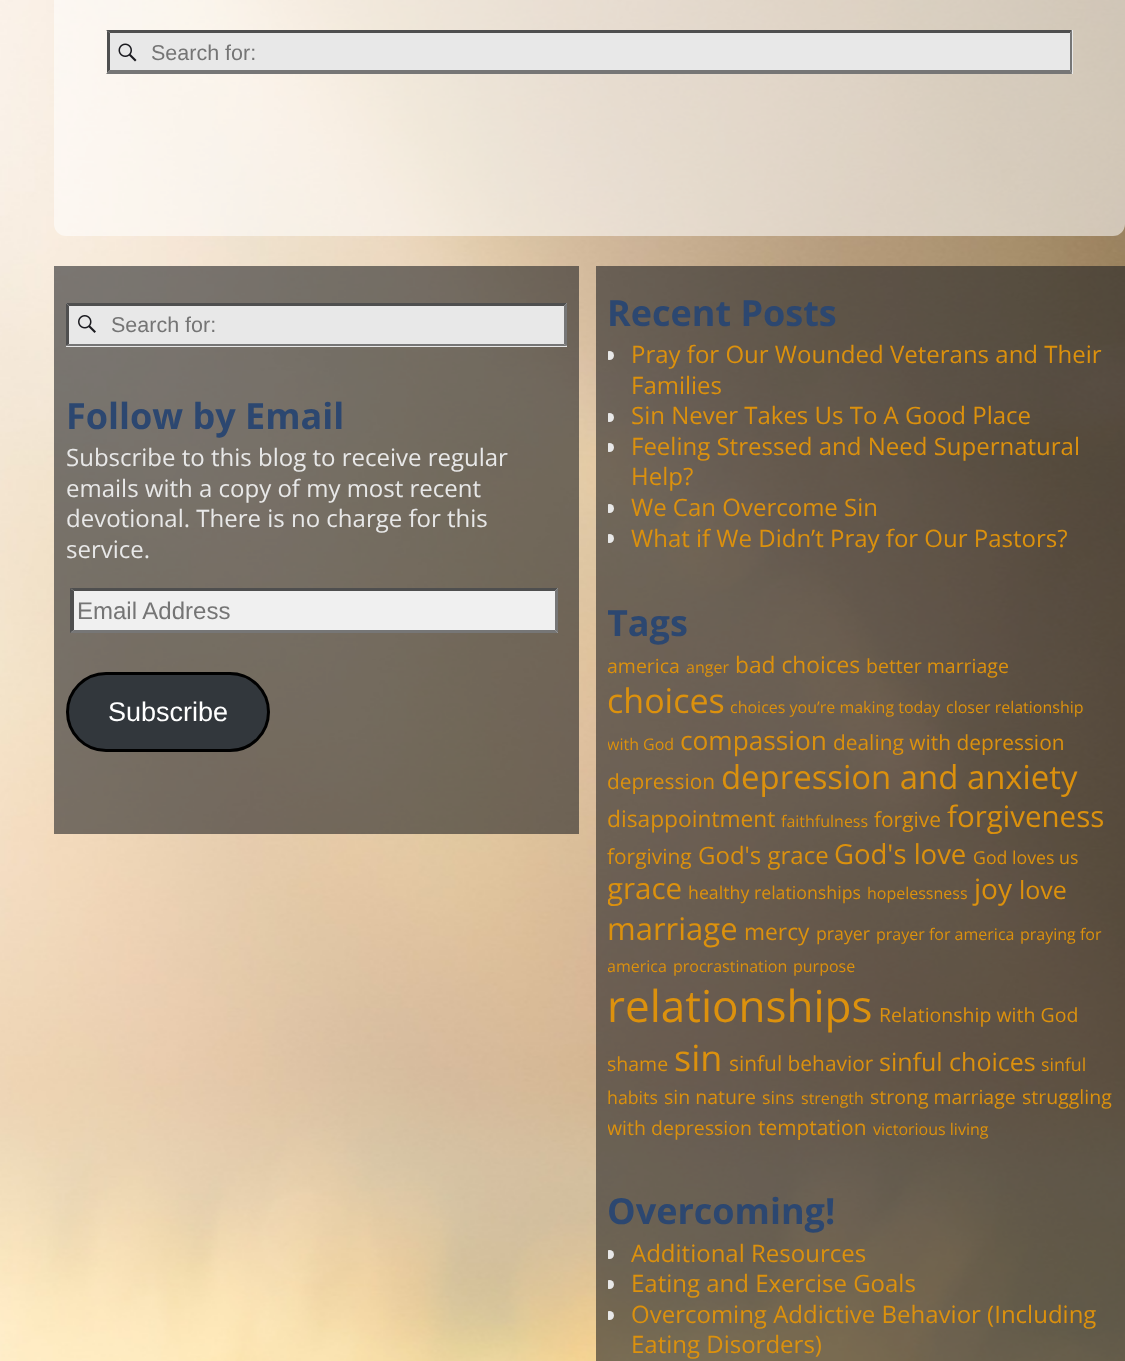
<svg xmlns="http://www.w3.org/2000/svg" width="1125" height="1361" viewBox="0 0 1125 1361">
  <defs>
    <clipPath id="clip1"><rect x="107" y="30" width="966" height="44"/></clipPath>
    <clipPath id="clip2"><rect x="608" y="290" width="505" height="264"/></clipPath>
    <clipPath id="clip3"><rect x="608" y="600" width="505" height="542"/></clipPath>
    <clipPath id="clip4"><rect x="608" y="1188" width="505" height="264"/></clipPath>
  </defs>
  <rect width="100%" height="100%" fill="rgb(255,255,255)"/>
  <image x="0" y="0" width="1125" height="1361" href="pic1.png"/>
  <rect x="54" y="-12" width="1071" height="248" rx="12" fill="rgba(255,255,255,0.55)"/>
  <rect x="107" y="30" width="966" height="44" fill="rgb(232,232,232)"/>
  <image x="118" y="43" width="19" height="19" href="pic2.png"/>
  <path d="M106 30H1072L1070 33H110Z" fill="rgb(79,79,79)"/>
  <path d="M1072 30V74L1070 70V33Z" fill="rgb(118,118,118)"/>
  <path d="M1072 74H106L110 70H1070Z" fill="rgb(118,118,118)"/>
  <g clip-path="url(#clip1)">
    <path d="M106 74V30L110 33V70Z" fill="rgb(79,79,79)"/>
  </g>
  <text x="151" y="60" font-family="Liberation Sans" font-size="21.5" fill="rgb(117,117,117)">Search for:</text>
  <rect x="54" y="266" width="525" height="568" fill="rgba(27,29,32,0.57)"/>
  <rect x="66" y="303" width="501" height="44" fill="rgb(232,232,232)"/>
  <image x="78" y="315" width="18" height="18" href="pic3.png"/>
  <path d="M66 303H567L564 306H69Z" fill="rgb(79,79,79)"/>
  <path d="M567 303V346L564 344V306Z" fill="rgb(118,118,118)"/>
  <path d="M567 346H66L69 344H564Z" fill="rgb(118,118,118)"/>
  <path d="M66 346V303L69 306V344Z" fill="rgb(79,79,79)"/>
  <text x="111" y="332" font-family="Liberation Sans" font-size="21.5" fill="rgb(117,117,117)">Search for:</text>
  <text x="66" y="429" font-family="Open Sans" font-size="36" font-weight="bold" fill="rgb(44,71,112)">Follow by Email</text>
  <g font-family="Open Sans" font-size="24" fill="rgb(232,232,232)">
    <text>
      <tspan x="66" y="466">Subscribe to this blog to receive regular</tspan>
      <tspan x="66" y="497">emails with a copy of my most recent</tspan>
      <tspan x="66" y="527">devotional. There is no charge for this</tspan>
      <tspan x="66" y="558">service.</tspan>
    </text>
  </g>
  <rect x="71" y="588" width="487" height="45" fill="rgb(240,240,240)"/>
  <path d="M70 588H558L555 591H74Z" fill="rgb(79,79,79)"/>
  <path d="M558 588V633L555 630V591Z" fill="rgb(118,118,118)"/>
  <path d="M558 633H70L74 630H555Z" fill="rgb(118,118,118)"/>
  <path d="M70 633V588L74 591V630Z" fill="rgb(79,79,79)"/>
  <text x="77" y="619" font-family="Liberation Sans" font-size="24" fill="rgb(117,117,117)">Email Address</text>
  <rect x="67.5" y="673.5" width="201" height="77" rx="38.5" fill="rgb(50,55,60)" stroke="rgb(0,0,0)" stroke-width="3"/>
  <text x="108" y="721" font-family="Liberation Sans" font-size="27" fill="rgb(255,255,255)">Subscribe</text>
  <rect x="596" y="266" width="529" height="1095" fill="rgba(27,29,32,0.57)"/>
  <text x="607" y="326" font-family="Open Sans" font-size="36" font-weight="bold" fill="rgb(44,71,112)">Recent Posts</text>
  <g clip-path="url(#clip2)">
    <circle cx="609.5" cy="355.5" r="4.5" fill="rgb(232,232,232)"/>
  </g>
  <g font-family="Open Sans" font-size="24" fill="rgb(220,145,13)">
    <text>
      <tspan x="631" y="363">Pray for Our Wounded Veterans and Their</tspan>
      <tspan x="631" y="394">Families</tspan>
    </text>
  </g>
  <g clip-path="url(#clip2)">
    <circle cx="609.5" cy="417.5" r="4.5" fill="rgb(232,232,232)"/>
  </g>
  <text x="631" y="424" font-family="Open Sans" font-size="24" fill="rgb(220,145,13)">Sin Never Takes Us To A Good Place</text>
  <g clip-path="url(#clip2)">
    <circle cx="609.5" cy="447.5" r="4.5" fill="rgb(232,232,232)"/>
  </g>
  <g font-family="Open Sans" font-size="24" fill="rgb(220,145,13)">
    <text>
      <tspan x="631" y="455">Feeling Stressed and Need Supernatural</tspan>
      <tspan x="631" y="485">Help?</tspan>
    </text>
  </g>
  <g clip-path="url(#clip2)">
    <circle cx="609.5" cy="508.5" r="4.5" fill="rgb(232,232,232)"/>
  </g>
  <text x="631" y="516" font-family="Open Sans" font-size="24" fill="rgb(220,145,13)">We Can Overcome Sin</text>
  <g clip-path="url(#clip2)">
    <circle cx="609.5" cy="538.5" r="4.5" fill="rgb(232,232,232)"/>
  </g>
  <text x="631" y="547" font-family="Open Sans" font-size="24" fill="rgb(220,145,13)">What if We Didn’t Pray for Our Pastors?</text>
  <g clip-path="url(#clip3)">
    <text x="607" y="636" font-family="Open Sans" font-size="36" font-weight="bold" fill="rgb(44,71,112)">Tags</text>
  </g>
  <text x="607" y="673" font-family="Open Sans" font-size="19.5" fill="rgb(220,145,13)">america</text>
  <text x="686" y="673" font-family="Open Sans" font-size="16" fill="rgb(220,145,13)">anger</text>
  <text x="735" y="673" font-family="Open Sans" font-size="22.75" fill="rgb(220,145,13)">bad choices</text>
  <text x="866" y="673" font-family="Open Sans" font-size="19.5" fill="rgb(220,145,13)">better marriage</text>
  <text x="607" y="713" font-family="Open Sans" font-size="34" fill="rgb(220,145,13)">choices</text>
  <g font-family="Open Sans" font-size="16" fill="rgb(220,145,13)">
    <text x="730" y="713">choices you’re making today</text>
    <text x="946" y="713">closer relationship</text>
  </g>
  <g clip-path="url(#clip3)">
    <text x="607" y="750" font-family="Open Sans" font-size="16" fill="rgb(220,145,13)">with God</text>
  </g>
  <text x="680" y="750" font-family="Open Sans" font-size="26.25" fill="rgb(220,145,13)">compassion</text>
  <g font-family="Open Sans" font-size="20.9" fill="rgb(220,145,13)">
    <text x="833" y="750">dealing with depression</text>
    <text x="607" y="789">depression</text>
  </g>
  <text x="721" y="789" font-family="Open Sans" font-size="32.9" fill="rgb(220,145,13)">depression and anxiety</text>
  <text x="607" y="827" font-family="Open Sans" font-size="22.75" fill="rgb(220,145,13)">disappointment</text>
  <text x="781" y="827" font-family="Open Sans" font-size="16" fill="rgb(220,145,13)">faithfulness</text>
  <text x="874" y="827" font-family="Open Sans" font-size="20.9" fill="rgb(220,145,13)">forgive</text>
  <text x="947" y="827" font-family="Open Sans" font-size="29.5" fill="rgb(220,145,13)">forgiveness</text>
  <text x="607" y="864" font-family="Open Sans" font-size="20.9" fill="rgb(220,145,13)">forgiving</text>
  <text x="698" y="864" font-family="Open Sans" font-size="24" fill="rgb(220,145,13)">God's grace</text>
  <text x="834" y="864" font-family="Open Sans" font-size="27.5" fill="rgb(220,145,13)">God's love</text>
  <text x="973" y="864" font-family="Open Sans" font-size="17.75" fill="rgb(220,145,13)">God loves us</text>
  <g clip-path="url(#clip3)">
    <text x="607" y="899" font-family="Open Sans" font-size="29.5" fill="rgb(220,145,13)">grace</text>
  </g>
  <text x="688" y="899" font-family="Open Sans" font-size="17.75" fill="rgb(220,145,13)">healthy relationships</text>
  <text x="867" y="899" font-family="Open Sans" font-size="16" fill="rgb(220,145,13)">hopelessness</text>
  <text x="974" y="899" font-family="Open Sans" font-size="28" fill="rgb(220,145,13)">joy</text>
  <text x="1019" y="899" font-family="Open Sans" font-size="25" fill="rgb(220,145,13)">love</text>
  <text x="607" y="940" font-family="Open Sans" font-size="31" fill="rgb(220,145,13)">marriage</text>
  <text x="744" y="940" font-family="Open Sans" font-size="22.75" fill="rgb(220,145,13)">mercy</text>
  <text x="816" y="940" font-family="Open Sans" font-size="17.75" fill="rgb(220,145,13)">prayer</text>
  <g font-family="Open Sans" font-size="16" fill="rgb(220,145,13)">
    <text x="876" y="940">prayer for america</text>
    <text x="1020" y="940">praying for</text>
  </g>
  <g clip-path="url(#clip3)">
    <text x="607" y="972" font-family="Open Sans" font-size="16" fill="rgb(220,145,13)">america</text>
  </g>
  <g font-family="Open Sans" font-size="16" fill="rgb(220,145,13)">
    <text x="673" y="972">procrastination</text>
    <text x="793" y="972">purpose</text>
  </g>
  <text x="607" y="1022" font-family="Open Sans" font-size="44" fill="rgb(220,145,13)">relationships</text>
  <text x="879" y="1022" font-family="Open Sans" font-size="19.5" fill="rgb(220,145,13)">Relationship with God</text>
  <g clip-path="url(#clip3)">
    <text x="607" y="1071" font-family="Open Sans" font-size="19.5" fill="rgb(220,145,13)">shame</text>
  </g>
  <text x="674" y="1071" font-family="Open Sans" font-size="36" fill="rgb(220,145,13)">sin</text>
  <text x="729" y="1071" font-family="Open Sans" font-size="20.9" fill="rgb(220,145,13)">sinful behavior</text>
  <text x="879" y="1071" font-family="Open Sans" font-size="25" fill="rgb(220,145,13)">sinful choices</text>
  <g font-family="Open Sans" font-size="17.75" fill="rgb(220,145,13)">
    <text x="1041" y="1071">sinful</text>
    <text x="607" y="1104">habits</text>
  </g>
  <text x="664" y="1104" font-family="Open Sans" font-size="19.5" fill="rgb(220,145,13)">sin nature</text>
  <text x="762" y="1104" font-family="Open Sans" font-size="17.75" fill="rgb(220,145,13)">sins</text>
  <text x="801" y="1104" font-family="Open Sans" font-size="16" fill="rgb(220,145,13)">strength</text>
  <g font-family="Open Sans" font-size="19.5" fill="rgb(220,145,13)">
    <text x="870" y="1104">strong marriage</text>
    <text x="1022" y="1104">struggling</text>
  </g>
  <g clip-path="url(#clip3)">
    <text x="607" y="1135" font-family="Open Sans" font-size="19.5" fill="rgb(220,145,13)">with depression</text>
  </g>
  <text x="758" y="1135" font-family="Open Sans" font-size="20.9" fill="rgb(220,145,13)">temptation</text>
  <text x="873" y="1135" font-family="Open Sans" font-size="16" fill="rgb(220,145,13)">victorious living</text>
  <text x="607" y="1224" font-family="Open Sans" font-size="36" font-weight="bold" fill="rgb(44,71,112)">Overcoming!</text>
  <g clip-path="url(#clip4)">
    <circle cx="609.5" cy="1254.5" r="4.5" fill="rgb(232,232,232)"/>
  </g>
  <text x="631" y="1262" font-family="Open Sans" font-size="24" fill="rgb(220,145,13)">Additional Resources</text>
  <g clip-path="url(#clip4)">
    <circle cx="609.5" cy="1284.5" r="4.5" fill="rgb(232,232,232)"/>
  </g>
  <text x="631" y="1292" font-family="Open Sans" font-size="24" fill="rgb(220,145,13)">Eating and Exercise Goals</text>
  <g clip-path="url(#clip4)">
    <circle cx="609.5" cy="1315.5" r="4.5" fill="rgb(232,232,232)"/>
  </g>
  <g font-family="Open Sans" font-size="24" fill="rgb(220,145,13)">
    <text>
      <tspan x="631" y="1323">Overcoming Addictive Behavior (Including</tspan>
      <tspan x="631" y="1353">Eating Disorders)</tspan>
    </text>
  </g>
</svg>
